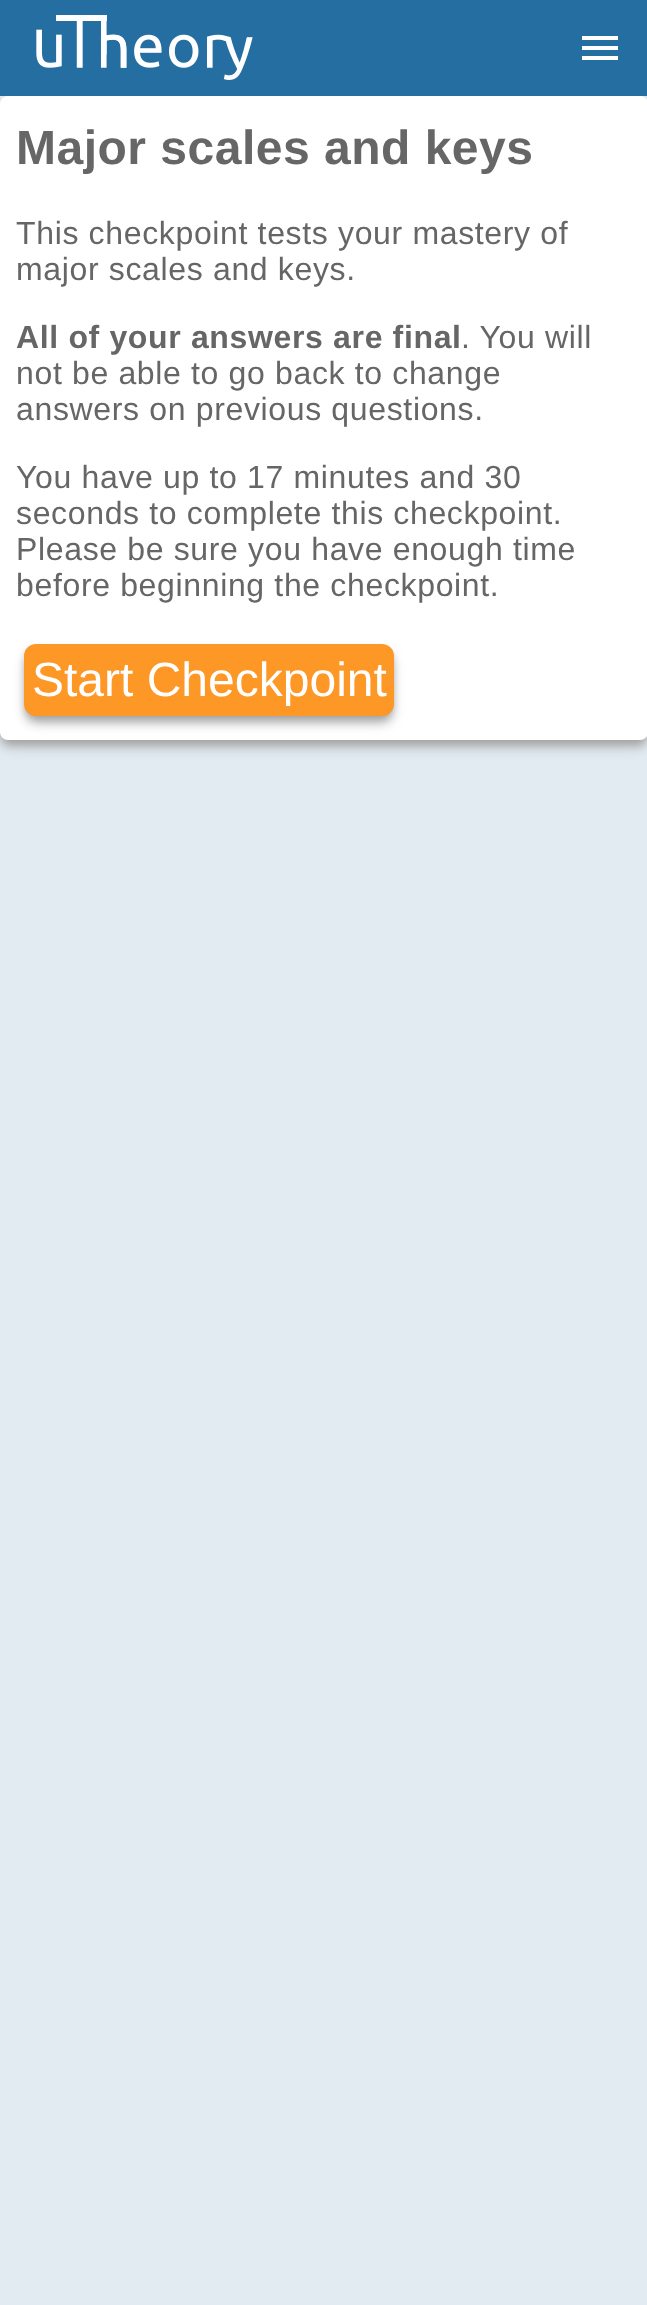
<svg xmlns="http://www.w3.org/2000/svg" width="647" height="2305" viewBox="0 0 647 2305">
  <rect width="100%" height="100%" fill="rgb(226,235,242)"/>
  <rect x="4" y="104" width="640" height="636" rx="4" fill="rgb(163,163,163)" filter="blur(4px)"/>
  <rect x="2" y="106" width="644" height="640" rx="6" fill="rgb(163,163,163)" filter="blur(6px)"/>
  <rect x="0" y="0" width="647" height="96" fill="rgb(37,110,162)"/>
  <image x="36" y="15" width="217" height="65" href="pic1.png"/>
  <image x="582" y="36" width="36" height="24" href="pic2.png"/>
  <rect x="0" y="96" width="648" height="644" rx="8" fill="rgb(255,255,255)"/>
  <text x="16" y="164" font-family="Liberation Sans" font-size="48" font-weight="bold" letter-spacing="0.5" fill="rgb(102,102,102)">Major scales and keys</text>
  <g font-family="Liberation Sans" font-size="32" letter-spacing="0.65" fill="rgb(102,102,102)">
    <text>
      <tspan x="16" y="244">This checkpoint tests your mastery of</tspan>
      <tspan x="16" y="280">major scales and keys.</tspan>
    </text>
  </g>
  <text x="16" y="348" font-family="Liberation Sans" font-size="32" font-weight="bold" letter-spacing="0.65" fill="rgb(102,102,102)">All of your answers are final</text>
  <g font-family="Liberation Sans" font-size="32" letter-spacing="0.65" fill="rgb(102,102,102)">
    <text x="461" y="348">. You will</text>
    <text>
      <tspan x="16" y="384">not be able to go back to change</tspan>
      <tspan x="16" y="420">answers on previous questions.</tspan>
    </text>
    <text>
      <tspan x="16" y="488">You have up to 17 minutes and 30</tspan>
      <tspan x="16" y="524">seconds to complete this checkpoint.</tspan>
      <tspan x="16" y="560">Please be sure you have enough time</tspan>
      <tspan x="16" y="596">before beginning the checkpoint.</tspan>
    </text>
  </g>
  <rect x="28" y="652" width="362" height="64" rx="8" fill="rgb(163,163,163)" filter="blur(4px)"/>
  <rect x="26" y="654" width="366" height="68" rx="10" fill="rgb(163,163,163)" filter="blur(6px)"/>
  <rect x="24" y="644" width="370" height="72" rx="12" fill="rgb(253,151,38)"/>
  <text x="32" y="696" font-family="Liberation Sans" font-size="48" fill="rgb(255,255,255)">Start Checkpoint</text>
</svg>
